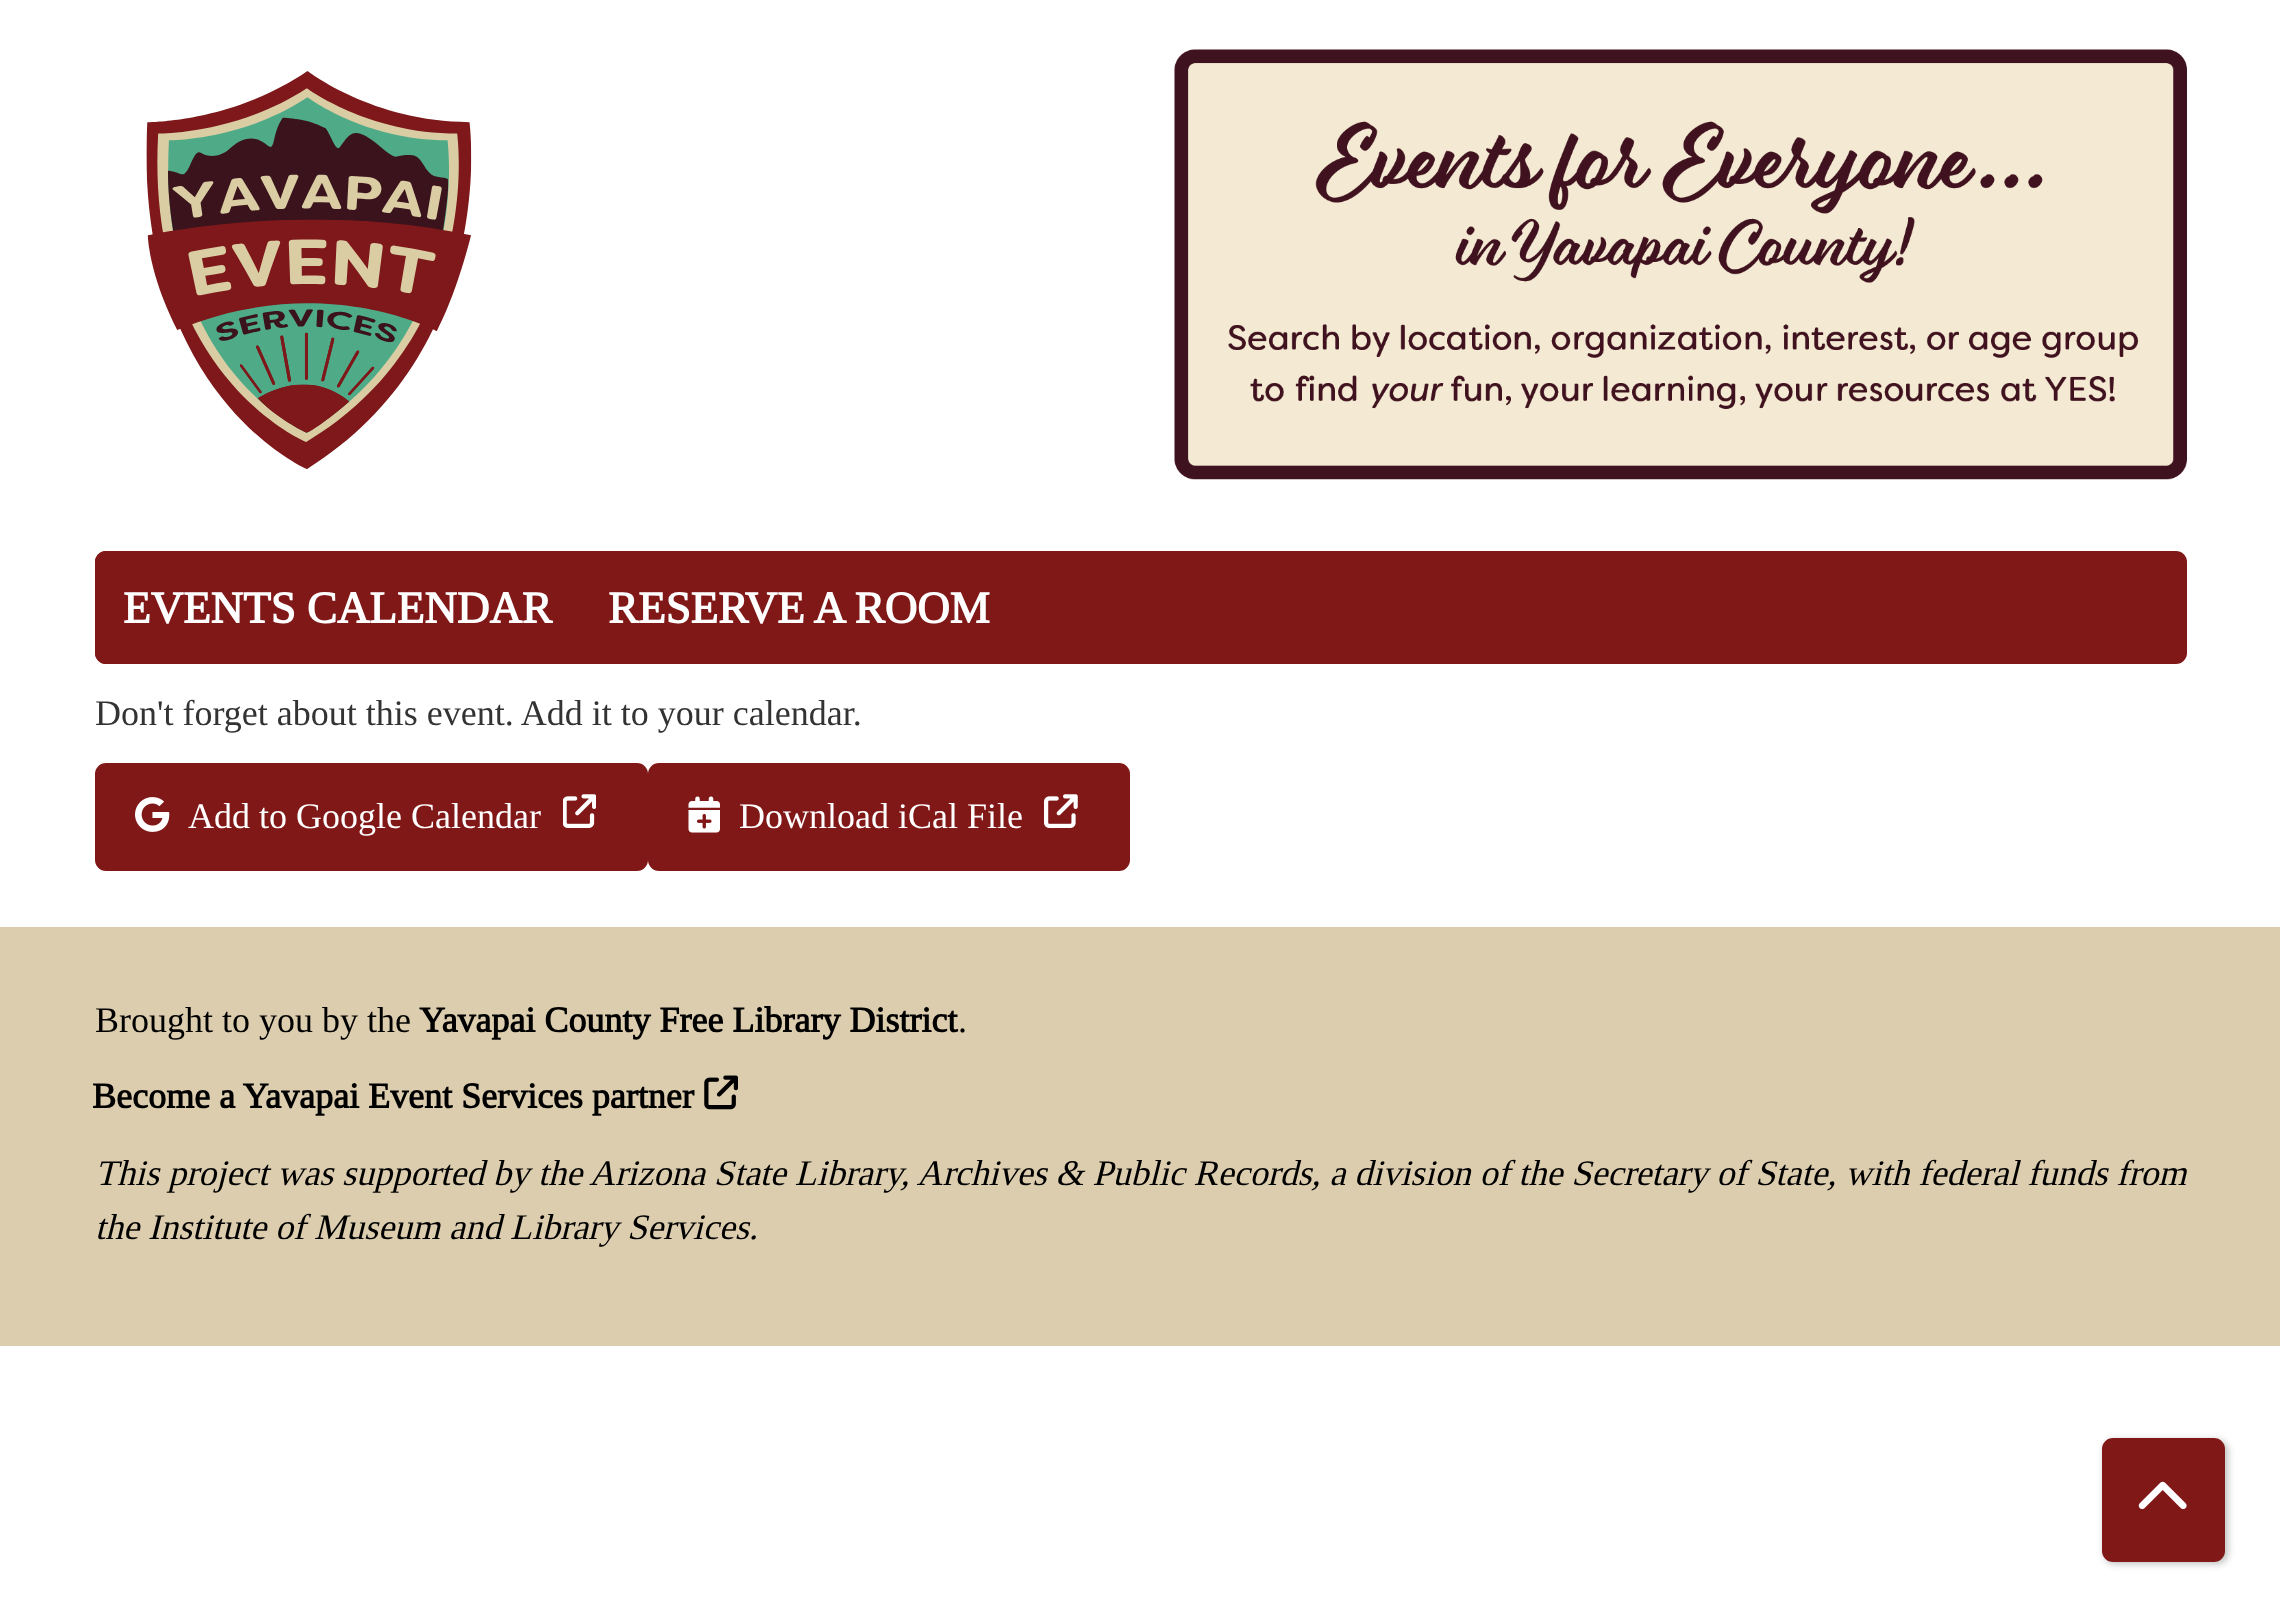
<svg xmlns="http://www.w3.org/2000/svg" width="2280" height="1616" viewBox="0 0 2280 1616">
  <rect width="100%" height="100%" fill="rgb(255,255,255)"/>
  <image x="146" y="71" width="326" height="399" href="pic1.png"/>
  <image x="1174" y="49" width="1013" height="431" href="pic2.png"/>
  <rect x="95" y="551" width="2092" height="113" rx="11" fill="rgb(129,24,24)"/>
  <path d="M106 551H581V664H106C100 664 95 659 95 653V562C95 556 100 551 106 551Z" fill="rgb(129,24,24)"/>
  <g font-family="Tinos" font-size="45" font-weight="bold" fill="rgb(255,255,255)">
    <text x="123" y="623">EVENTS CALENDAR</text>
    <text x="608" y="623">RESERVE A ROOM</text>
  </g>
  <text x="95" y="725" font-family="Tinos" font-size="36" fill="rgb(51,51,51)">Don't forget about this event. Add it to your calendar.</text>
  <rect x="96" y="764" width="551" height="106" rx="10" fill="rgb(129,24,24)" stroke="rgb(129,24,24)" stroke-width="2"/>
  <image x="135" y="797" width="35" height="35" href="pic3.png"/>
  <text x="188" y="828" font-family="Tinos" font-size="36" fill="rgb(255,255,255)">Add to Google Calendar</text>
  <image x="563" y="794" width="33" height="34" href="pic4.png"/>
  <rect x="649" y="764" width="480" height="106" rx="10" fill="rgb(129,24,24)" stroke="rgb(129,24,24)" stroke-width="2"/>
  <image x="688" y="796" width="32" height="37" href="pic5.png"/>
  <text x="739" y="828" font-family="Tinos" font-size="36" fill="rgb(255,255,255)">Download iCal File</text>
  <image x="1044" y="794" width="34" height="34" href="pic6.png"/>
  <rect x="0" y="927" width="2280" height="419" fill="rgb(220,205,174)"/>
  <text x="95" y="1032" font-family="Tinos" font-size="36" fill="rgb(0,0,0)">Brought to you by the</text>
  <text x="419" y="1032" font-family="Tinos" font-size="36" font-weight="bold" fill="rgb(0,0,0)">Yavapai County Free Library District</text>
  <text x="958" y="1032" font-family="Tinos" font-size="36" fill="rgb(0,0,0)">.</text>
  <text x="92" y="1108" font-family="Tinos" font-size="36" font-weight="bold" fill="rgb(0,0,0)">Become a Yavapai Event Services partner</text>
  <image x="704" y="1075" width="34" height="35" href="pic7.png"/>
  <g font-family="Tinos" font-size="36" font-style="italic" fill="rgb(0,0,0)">
    <text>
      <tspan x="95" y="1185">This project was supported by the Arizona State Library, Archives &amp; Public Records, a division of the Secretary of State, with federal funds from</tspan>
      <tspan x="95" y="1239">the Institute of Museum and Library Services.</tspan>
    </text>
  </g>
  <rect x="2104" y="1440" width="124" height="124" rx="11" fill="rgba(0,0,0,0.25)" filter="blur(3.5px)"/>
  <rect x="2103" y="1439" width="121" height="122" rx="10" fill="rgb(129,24,24)" stroke="rgb(129,24,24)" stroke-width="2"/>
  <image x="2138" y="1481" width="49" height="29" href="pic8.png"/>
</svg>
